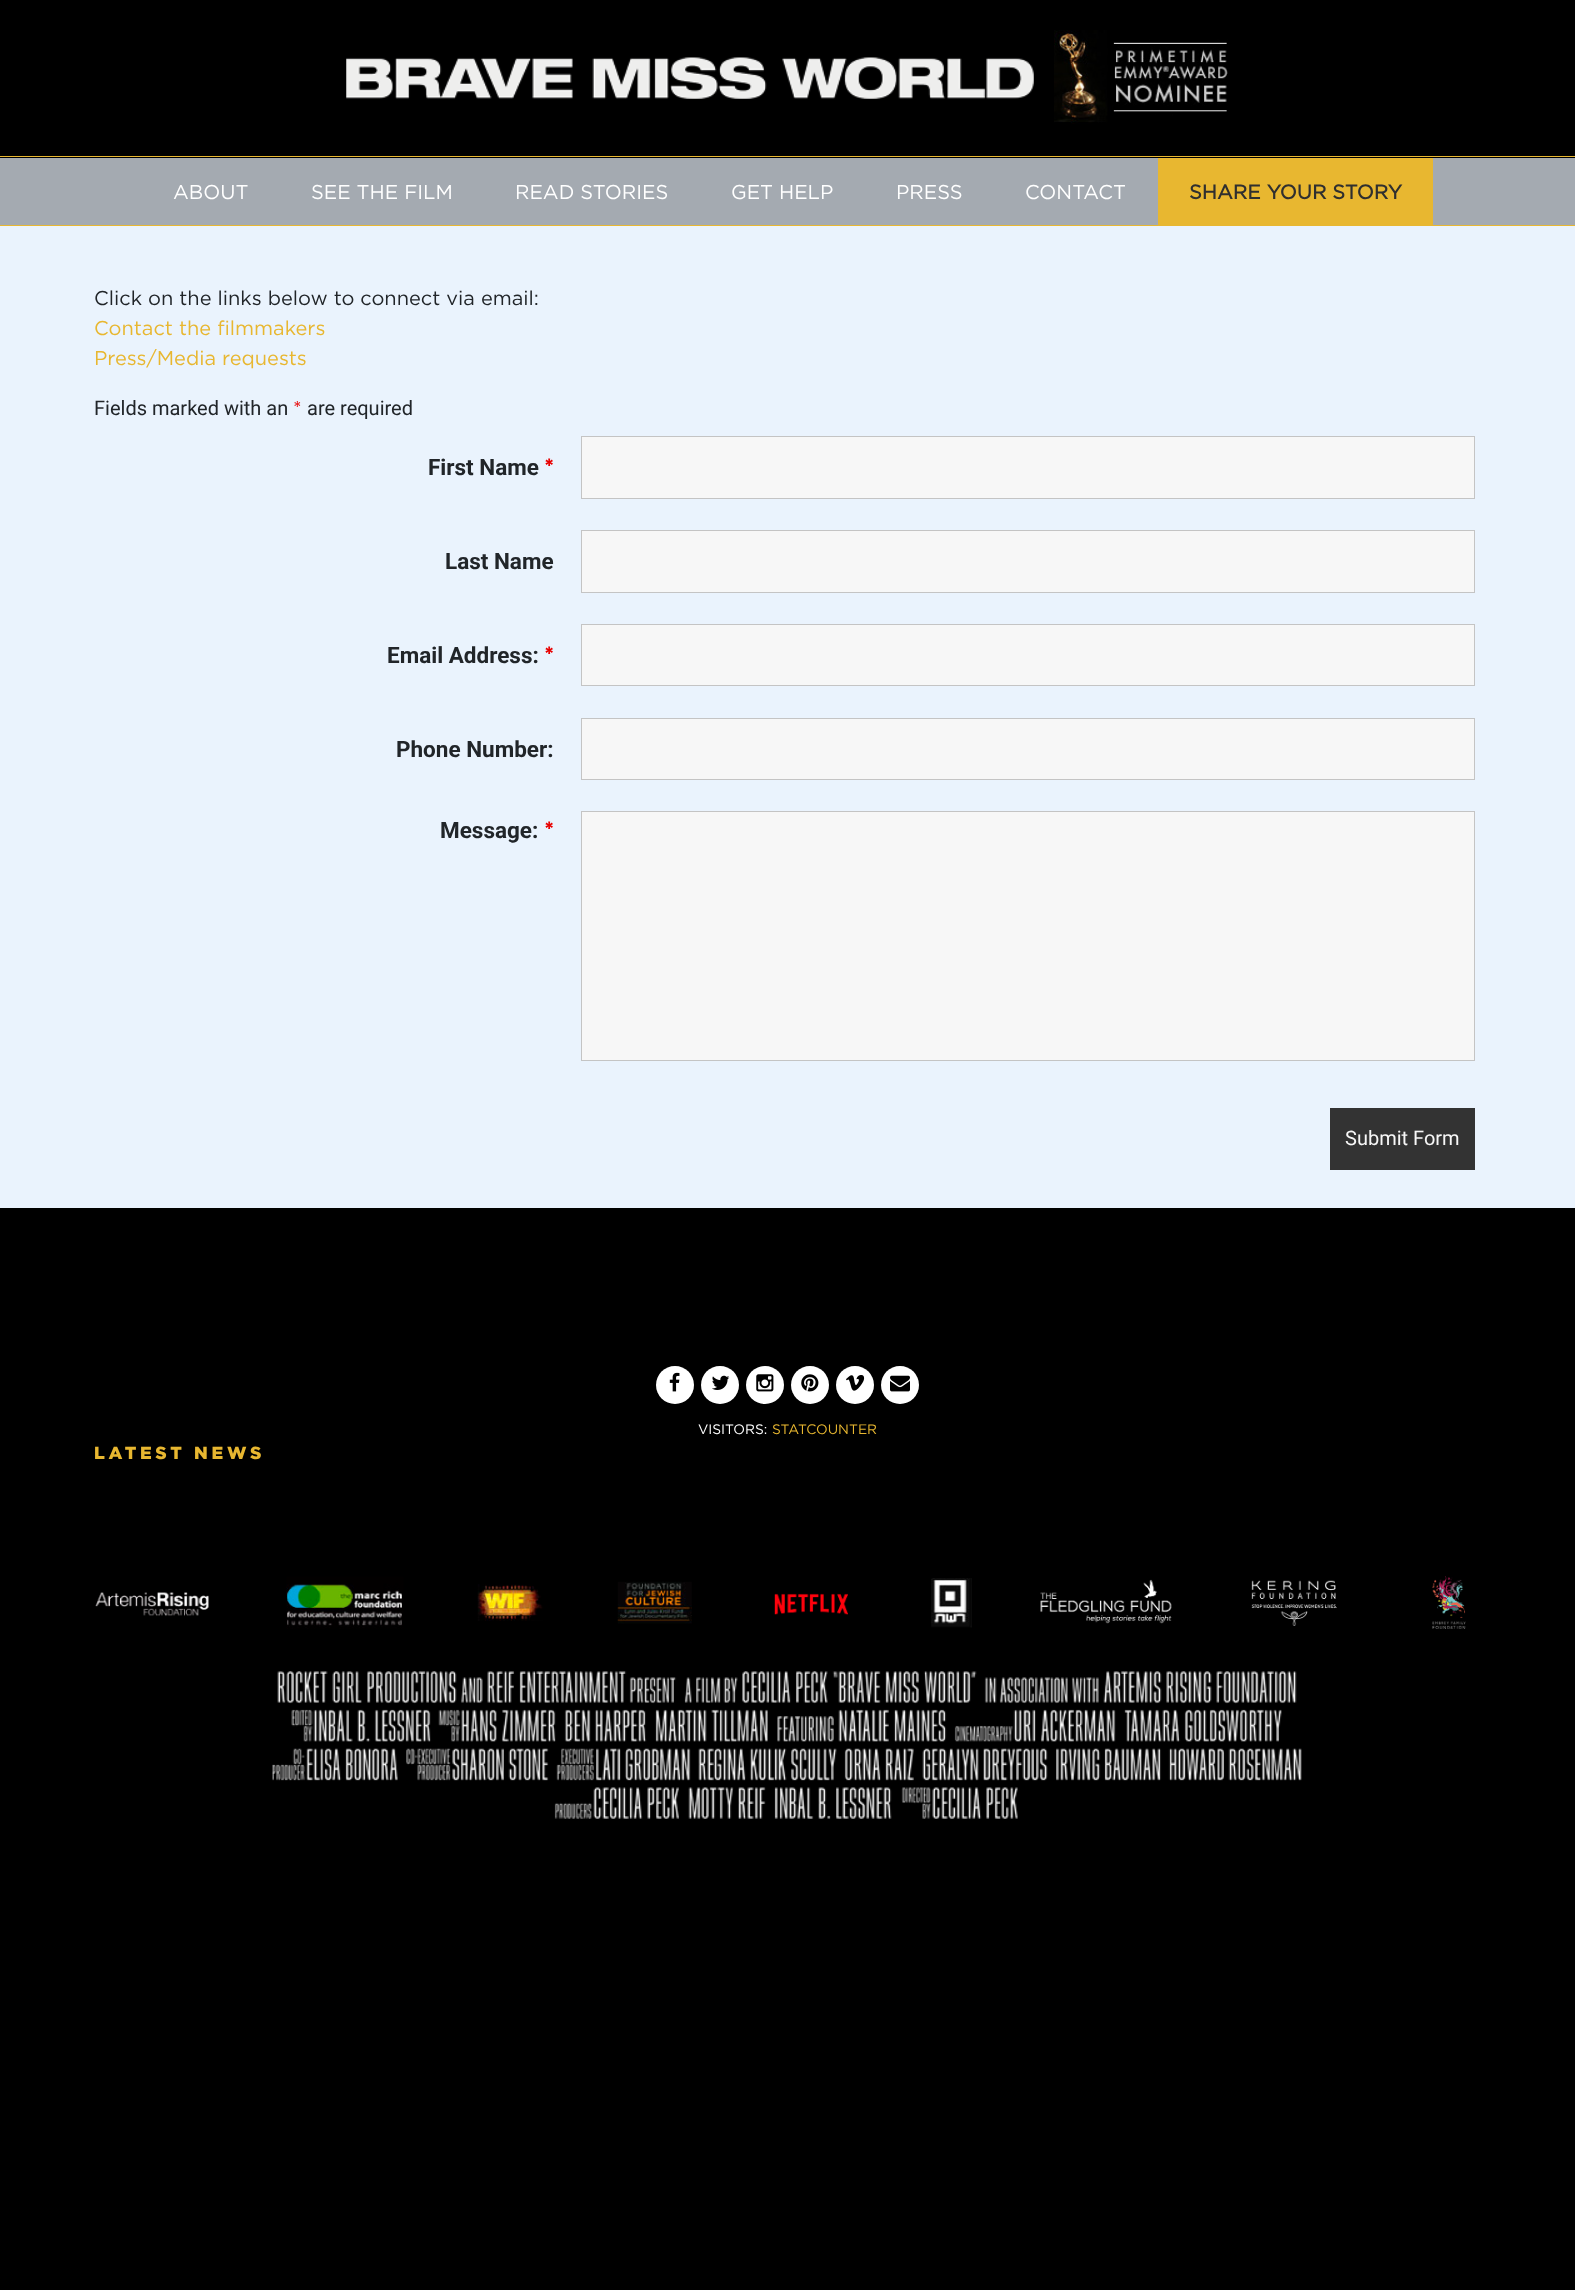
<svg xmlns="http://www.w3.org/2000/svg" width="1575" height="2290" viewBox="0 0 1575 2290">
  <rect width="100%" height="100%" fill="rgb(0,0,0)"/>
  <rect x="0" y="156" width="1575" height="1" fill="rgb(232,183,48)"/>
  <image x="346" y="57" width="688" height="42" href="pic1.png"/>
  <image x="1054" y="30" width="174" height="94" href="pic2.png"/>
  <rect x="0" y="158" width="1575" height="67" fill="rgb(164,170,177)"/>
  <rect x="0" y="225" width="1575" height="1" fill="rgb(232,183,48)"/>
  <g font-family="Gotham" font-size="20" fill="rgb(255,255,255)">
    <text x="173" y="199">ABOUT</text>
    <text x="311" y="199">SEE THE FILM</text>
    <text x="515" y="199">READ STORIES</text>
    <text x="731" y="199">GET HELP</text>
    <text x="896" y="199">PRESS</text>
    <text x="1025" y="199">CONTACT</text>
  </g>
  <rect x="1158" y="158" width="275" height="67" fill="rgb(232,183,48)"/>
  <text x="1189" y="199" font-family="Gotham" font-size="20" font-weight="bold" fill="rgb(47,47,47)">SHARE YOUR STORY</text>
  <rect x="0" y="226" width="1575" height="982" fill="rgb(234,243,253)"/>
  <text x="94" y="305" font-family="Gotham" font-size="20" fill="rgb(33,37,41)">Click on the links below to connect via email:</text>
  <g font-family="Gotham" font-size="20" fill="rgb(232,183,48)">
    <text>
      <tspan x="94" y="335">Contact the filmmakers</tspan>
      <tspan x="94" y="365">Press/Media requests</tspan>
    </text>
  </g>
  <text x="94" y="415" font-family="Roboto" font-size="20" fill="rgb(33,37,41)">Fields marked with an</text>
  <text x="293" y="415" font-family="Gotham" font-size="20" fill="rgb(232,0,0)">*</text>
  <text x="307" y="415" font-family="Roboto" font-size="20" fill="rgb(33,37,41)">are required</text>
  <text x="428" y="475" font-family="Roboto" font-size="22.5" font-weight="bold" fill="rgb(33,37,41)">First Name</text>
  <text x="544" y="475" font-family="Gotham" font-size="22.5" font-weight="bold" fill="rgb(232,0,0)">*</text>
  <rect x="581.5" y="436.5" width="893" height="62" fill="rgb(247,247,247)" stroke="rgb(196,196,196)"/>
  <text x="445" y="569" font-family="Roboto" font-size="22.5" font-weight="bold" fill="rgb(33,37,41)">Last Name</text>
  <rect x="581.5" y="530.5" width="893" height="62" fill="rgb(247,247,247)" stroke="rgb(196,196,196)"/>
  <text x="387" y="663" font-family="Roboto" font-size="22.5" font-weight="bold" fill="rgb(33,37,41)">Email Address:</text>
  <text x="544" y="663" font-family="Gotham" font-size="22.5" font-weight="bold" fill="rgb(232,0,0)">*</text>
  <rect x="581.5" y="624.5" width="893" height="61" fill="rgb(247,247,247)" stroke="rgb(196,196,196)"/>
  <text x="396" y="757" font-family="Roboto" font-size="22.5" font-weight="bold" fill="rgb(33,37,41)">Phone Number:</text>
  <rect x="581.5" y="718.5" width="893" height="61" fill="rgb(247,247,247)" stroke="rgb(196,196,196)"/>
  <text x="440" y="838" font-family="Roboto" font-size="22.5" font-weight="bold" fill="rgb(33,37,41)">Message:</text>
  <text x="544" y="838" font-family="Gotham" font-size="22.5" font-weight="bold" fill="rgb(232,0,0)">*</text>
  <rect x="581.5" y="811.5" width="893" height="249" fill="rgb(247,247,247)" stroke="rgb(196,196,196)"/>
  <rect x="1330" y="1108" width="145" height="62" fill="rgb(51,51,51)"/>
  <text x="1345" y="1145" font-family="Roboto" font-size="20" fill="rgb(247,247,247)">Submit Form</text>
  <circle cx="675" cy="1385" r="19" fill="rgb(255,255,255)"/>
  <image x="669" y="1372" width="11" height="20" href="pic3.png"/>
  <circle cx="720" cy="1385" r="19" fill="rgb(255,255,255)"/>
  <image x="712" y="1375" width="18" height="15" href="pic4.png"/>
  <circle cx="765" cy="1385" r="19" fill="rgb(255,255,255)"/>
  <image x="756" y="1374" width="18" height="18" href="pic5.png"/>
  <circle cx="810" cy="1385" r="19" fill="rgb(255,255,255)"/>
  <image x="801" y="1374" width="18" height="18" href="pic6.png"/>
  <circle cx="855" cy="1385" r="19" fill="rgb(255,255,255)"/>
  <image x="846" y="1375" width="19" height="16" href="pic7.png"/>
  <circle cx="900" cy="1385" r="19" fill="rgb(255,255,255)"/>
  <image x="890" y="1375" width="20" height="17" href="pic8.png"/>
  <text x="698" y="1434" font-family="Gotham" font-size="13.75" fill="rgb(255,255,255)">VISITORS:</text>
  <text x="772" y="1434" font-family="Gotham" font-size="13.75" fill="rgb(232,183,48)">STATCOUNTER</text>
  <text x="94" y="1459" font-family="Gotham" font-size="17.5" font-weight="900" letter-spacing="3.75" fill="rgb(232,183,48)">LATEST NEWS</text>
  <image x="95" y="1576" width="1371" height="53" href="pic9.png"/>
  <image x="272" y="1671" width="1030" height="148" href="pic10.png"/>
</svg>
